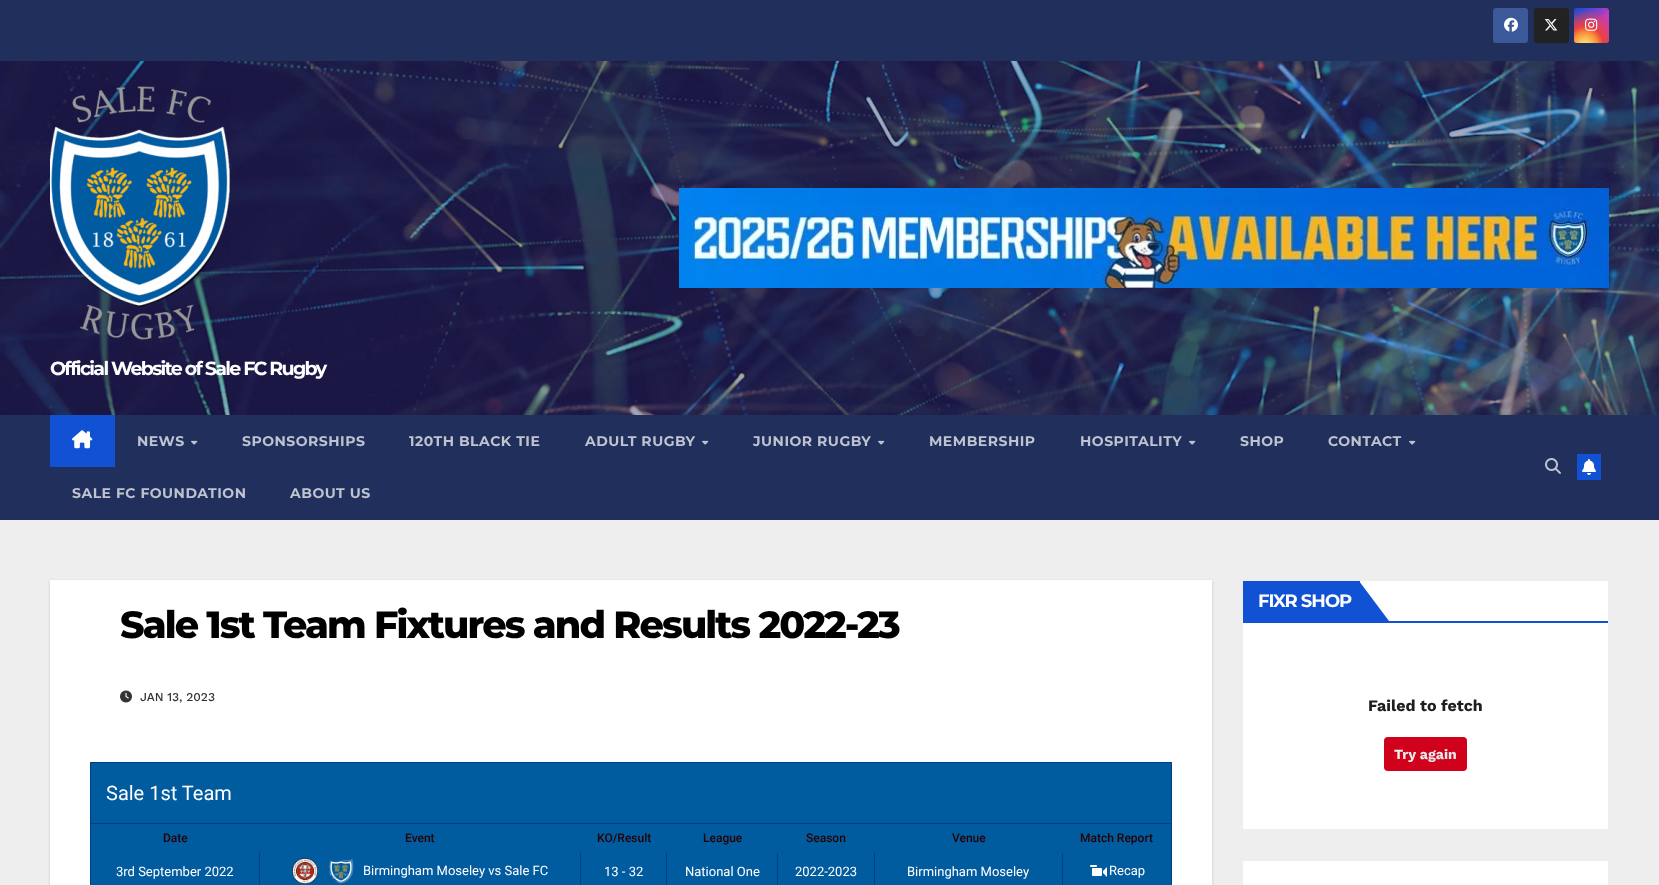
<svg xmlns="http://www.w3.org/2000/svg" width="1659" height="885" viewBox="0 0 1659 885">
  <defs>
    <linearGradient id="g1" gradientUnits="userSpaceOnUse" x1="1574" y1="8" x2="1609" y2="43"><stop offset="0.12" stop-color="rgb(35,75,215)"/><stop offset="0.58" stop-color="rgb(195,60,190)"/></linearGradient>
    <radialGradient id="g2" gradientUnits="userSpaceOnUse" cx="1585" cy="45" r="44"><stop offset="0" stop-color="rgb(255,225,125)"/><stop offset="0.1" stop-color="rgb(255,205,105)"/><stop offset="0.28" stop-color="rgb(250,145,55)"/><stop offset="0.42" stop-color="rgb(235,65,65)"/><stop offset="0.82" stop-color="rgb(235,65,65)" stop-opacity="0"/></radialGradient>
  </defs>
  <rect width="100%" height="100%" fill="rgb(238,238,238)"/>
  <rect x="0" y="0" width="1659" height="61" fill="rgb(32,47,91)"/>
  <rect x="1493" y="8" width="35" height="35" rx="3" fill="rgb(59,89,152)"/>
  <image x="1504" y="17" width="14" height="15" href="pic1.png"/>
  <rect x="1534" y="8" width="35" height="35" rx="3" fill="rgb(34,34,34)"/>
  <image x="1544" y="19" width="14" height="12" href="pic2.png"/>
  <rect x="1574" y="8" width="35" height="35" rx="3" fill="url(#g1)"/>
  <rect x="1574" y="8" width="35" height="35" rx="3" fill="url(#g2)"/>
  <image x="1585" y="18" width="13" height="13" href="pic3.png"/>
  <image x="0" y="61" width="1659" height="354" href="pic4.png"/>
  <image x="679" y="188" width="930" height="100" href="pic5.png"/>
  <image x="50" y="86" width="180" height="254" href="pic6.png"/>
  <text x="50" y="375" font-family="Montserrat" font-size="19" font-weight="bold" letter-spacing="-1.7" fill="rgb(255,255,255)">Official Website of Sale FC Rugby</text>
  <rect x="0" y="415" width="1659" height="105" fill="rgb(32,47,91)"/>
  <rect x="50" y="415" width="65" height="52" fill="rgb(17,81,211)"/>
  <image x="72" y="430" width="21" height="19" href="pic7.png"/>
  <text x="137" y="446" font-family="Montserrat" font-size="14" font-weight="bold" letter-spacing="0.5" fill="rgb(190,195,207)">NEWS</text>
  <image x="191" y="440" width="7" height="5" href="pic8.png"/>
  <g font-family="Montserrat" font-size="14" font-weight="bold" letter-spacing="0.5" fill="rgb(190,195,207)">
    <text x="242" y="446">SPONSORSHIPS</text>
    <text x="409" y="446">120TH BLACK TIE</text>
    <text x="585" y="446">ADULT RUGBY</text>
  </g>
  <image x="702" y="440" width="7" height="5" href="pic8.png"/>
  <text x="753" y="446" font-family="Montserrat" font-size="14" font-weight="bold" letter-spacing="0.5" fill="rgb(190,195,207)">JUNIOR RUGBY</text>
  <image x="878" y="440" width="7" height="5" href="pic8.png"/>
  <g font-family="Montserrat" font-size="14" font-weight="bold" letter-spacing="0.5" fill="rgb(190,195,207)">
    <text x="929" y="446">MEMBERSHIP</text>
    <text x="1080" y="446">HOSPITALITY</text>
  </g>
  <image x="1189" y="440" width="7" height="5" href="pic8.png"/>
  <g font-family="Montserrat" font-size="14" font-weight="bold" letter-spacing="0.5" fill="rgb(190,195,207)">
    <text x="1240" y="446">SHOP</text>
    <text x="1328" y="446">CONTACT</text>
  </g>
  <image x="1409" y="440" width="7" height="5" href="pic8.png"/>
  <g font-family="Montserrat" font-size="14" font-weight="bold" letter-spacing="0.5" fill="rgb(190,195,207)">
    <text x="72" y="498">SALE FC FOUNDATION</text>
    <text x="290" y="498">ABOUT US</text>
  </g>
  <image x="1545" y="458" width="16" height="16" href="pic9.png"/>
  <rect x="1577" y="454" width="24" height="26" fill="rgb(17,81,211)"/>
  <image x="1582" y="459" width="14" height="16" href="pic10.png"/>
  <rect x="50" y="581" width="1162" height="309" fill="rgba(0,0,0,0.15)" filter="blur(1.5px)"/>
  <rect x="50" y="580" width="1162" height="305" fill="rgb(255,255,255)"/>
  <text x="120" y="638" font-family="Montserrat" font-size="38" font-weight="800" letter-spacing="-1.9" fill="rgb(0,0,0)">Sale 1st Team Fixtures and Results 2022-23</text>
  <image x="120" y="690" width="12" height="13" href="pic11.png"/>
  <text x="140" y="701" font-family="Work Sans" font-size="12" font-weight="500" fill="rgb(51,51,51)">JAN 13, 2023</text>
  <rect x="91" y="763" width="1080" height="60" fill="rgb(0,91,159)"/>
  <rect x="90" y="762" width="1082" height="1" fill="rgb(0,65,133)"/>
  <rect x="1171" y="762" width="1" height="61" fill="rgb(0,65,133)"/>
  <rect x="90" y="762" width="1" height="61" fill="rgb(0,65,133)"/>
  <text x="106" y="800" font-family="Roboto" font-size="20" fill="rgb(255,255,255)">Sale 1st Team</text>
  <rect x="91" y="853" width="1080" height="32" fill="rgb(0,91,159)"/>
  <rect x="90" y="823" width="1082" height="1" fill="rgb(0,65,133)"/>
  <rect x="1171" y="823" width="1" height="62" fill="rgb(0,65,133)"/>
  <rect x="90" y="823" width="1" height="62" fill="rgb(0,65,133)"/>
  <rect x="259" y="852" width="1" height="33" fill="rgb(0,65,133)"/>
  <rect x="580" y="852" width="1" height="33" fill="rgb(0,65,133)"/>
  <rect x="666" y="852" width="1" height="33" fill="rgb(0,65,133)"/>
  <rect x="777" y="852" width="1" height="33" fill="rgb(0,65,133)"/>
  <rect x="874" y="852" width="1" height="33" fill="rgb(0,65,133)"/>
  <rect x="1062" y="852" width="1" height="33" fill="rgb(0,65,133)"/>
  <rect x="91" y="824" width="1080" height="29" fill="rgb(0,91,159)"/>
  <g font-family="Roboto" font-size="12" font-weight="500" fill="rgb(38,1,1)">
    <text x="163" y="842">Date</text>
    <text x="405" y="842">Event</text>
    <text x="597" y="842">KO/Result</text>
    <text x="703" y="842">League</text>
    <text x="806" y="842">Season</text>
    <text x="952" y="842">Venue</text>
    <text x="1080" y="842">Match Report</text>
  </g>
  <text x="116" y="876" font-family="Roboto" font-size="13" fill="rgb(255,255,255)">3rd September 2022</text>
  <image x="292" y="858" width="26" height="26" href="pic12.png"/>
  <image x="329" y="859" width="25" height="25" href="pic13.png"/>
  <g font-family="Roboto" font-size="13" fill="rgb(255,255,255)">
    <text x="363" y="875">Birmingham Moseley vs Sale FC</text>
    <text x="604" y="876">13 - 32</text>
    <text x="685" y="876">National One</text>
    <text x="795" y="876">2022-2023</text>
    <text x="907" y="876">Birmingham Moseley</text>
  </g>
  <image x="1090" y="865" width="17" height="12" href="pic14.png"/>
  <text x="1109" y="875" font-family="Roboto" font-size="13" fill="rgb(255,255,255)">Recap</text>
  <rect x="1243" y="581" width="365" height="248" fill="rgb(255,255,255)"/>
  <rect x="1243" y="621" width="365" height="2" fill="rgb(17,81,211)"/>
  <rect x="1243" y="581" width="117" height="40" fill="rgb(17,81,211)"/>
  <text x="1258" y="607" font-family="Montserrat" font-size="18" font-weight="bold" letter-spacing="-1" fill="rgb(255,255,255)">FIXR SHOP</text>
  <path d="M1359 621V581L1389 621Z" fill="rgb(17,81,211)"/>
  <text x="1368" y="711" font-family="Work Sans" font-size="16" font-weight="bold" fill="rgb(30,30,30)">Failed to fetch</text>
  <rect x="1384" y="737" width="83" height="34" rx="4" fill="rgb(208,2,27)"/>
  <text x="1394" y="759" font-family="Work Sans" font-size="14" font-weight="bold" fill="rgb(233,234,235)">Try again</text>
  <rect x="1243" y="861" width="365" height="24" fill="rgb(255,255,255)"/>
</svg>
